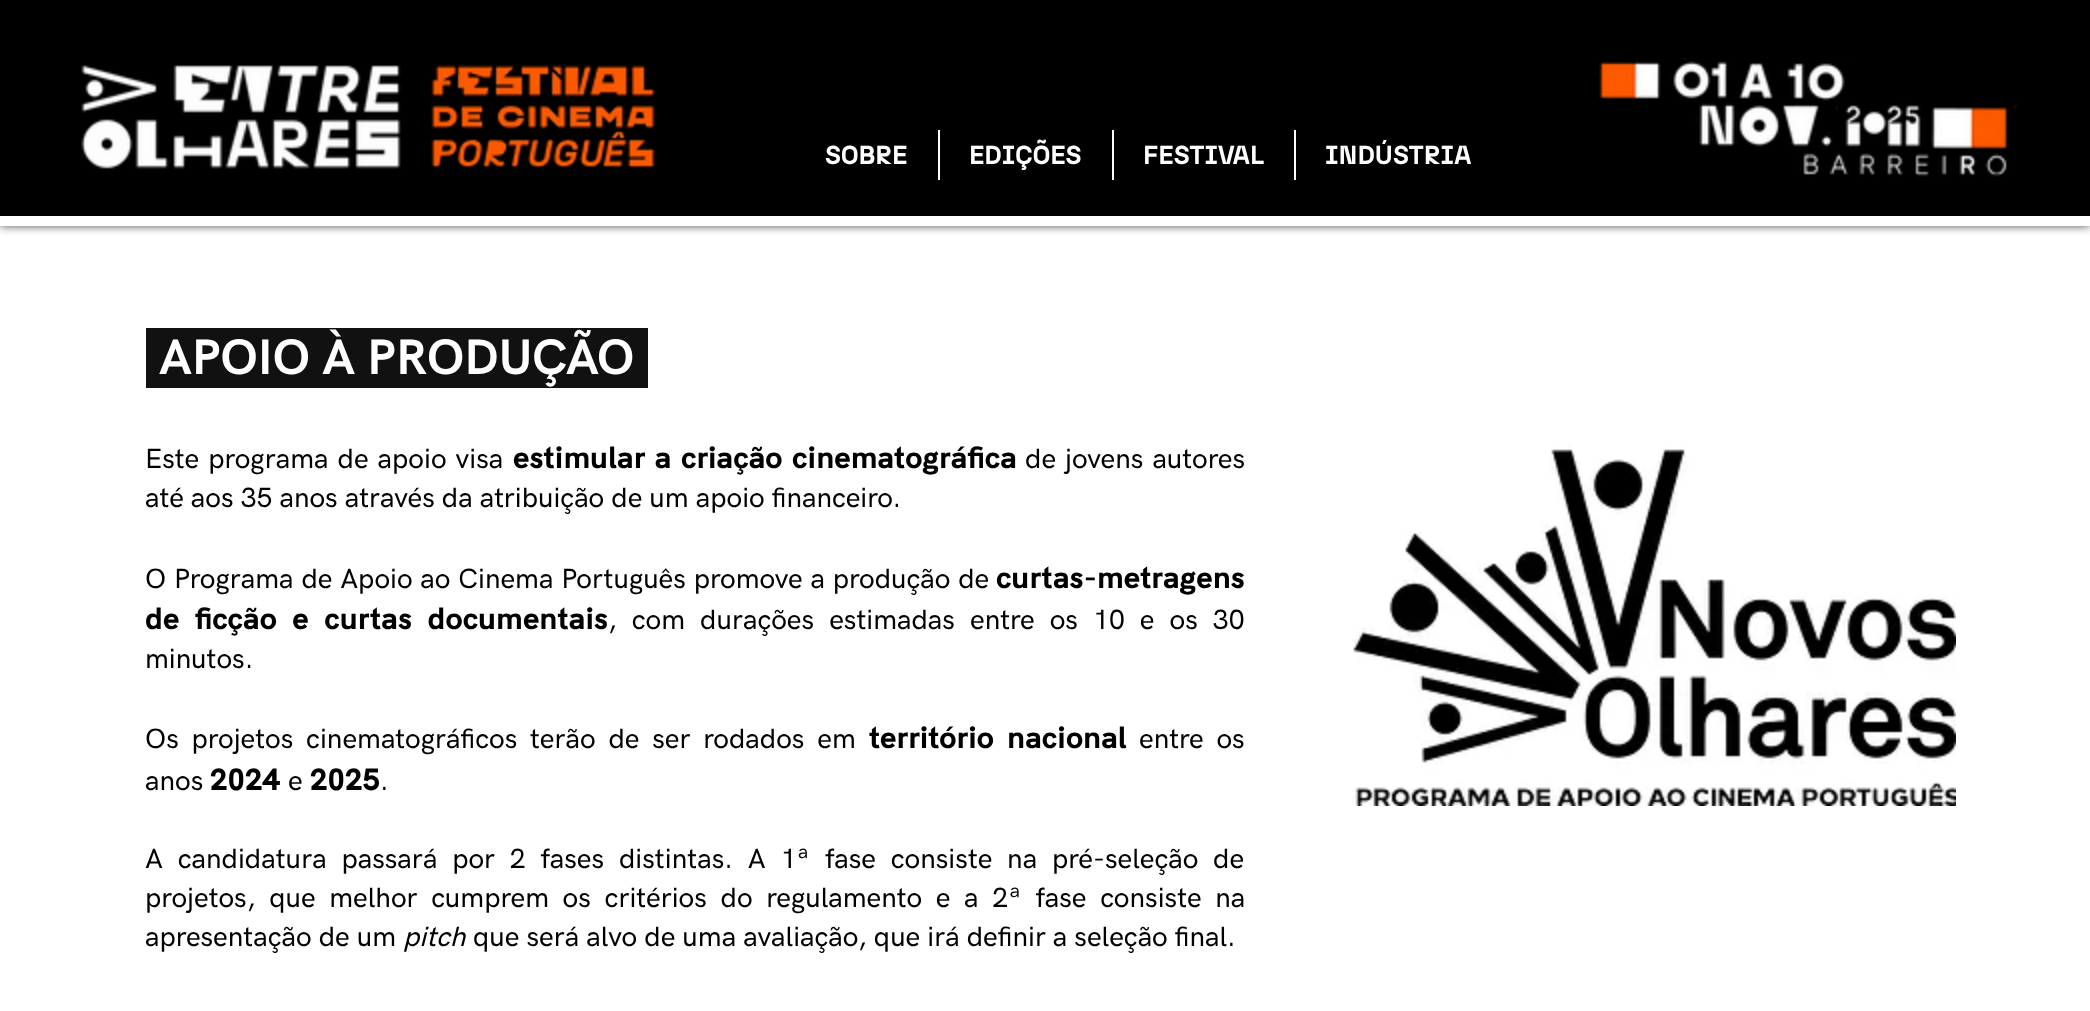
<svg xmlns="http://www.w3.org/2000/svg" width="2090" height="1011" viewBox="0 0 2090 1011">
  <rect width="100%" height="100%" fill="rgb(255,255,255)"/>
  <rect x="0" y="2" width="2090" height="224" fill="rgba(0,0,0,0.7)" filter="blur(5px)"/>
  <rect x="0" y="0" width="2090" height="216" fill="rgb(0,0,0)"/>
  <image x="81" y="65" width="320" height="104" href="pic1.png"/>
  <image x="431" y="65" width="224" height="104" href="pic2.png"/>
  <text x="825" y="164" font-family="'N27'" font-size="26" font-weight="bold" fill="rgb(255,255,255)">SOBRE</text>
  <rect x="938" y="130" width="2" height="50" fill="rgb(255,255,255)"/>
  <text x="969" y="164" font-family="'N27'" font-size="26" font-weight="bold" fill="rgb(255,255,255)">EDIÇÕES</text>
  <rect x="1112" y="130" width="2" height="50" fill="rgb(255,255,255)"/>
  <text x="1143" y="164" font-family="'N27'" font-size="26" font-weight="bold" fill="rgb(255,255,255)">FESTIVAL</text>
  <rect x="1294" y="130" width="2" height="50" fill="rgb(255,255,255)"/>
  <text x="1325" y="164" font-family="'N27'" font-size="26" font-weight="bold" fill="rgb(255,255,255)">INDÚSTRIA</text>
  <image x="1594" y="58" width="424" height="119" href="pic3.png"/>
  <rect x="0" y="216" width="2090" height="10" fill="rgb(255,255,255)"/>
  <rect x="146" y="328" width="502" height="60" fill="rgb(17,17,17)"/>
  <text x="159" y="374" font-family="Hanken Grotesk" font-size="50" font-weight="bold" fill="rgb(255,255,255)">APOIO À PRODUÇÃO</text>
  <text x="145" y="468" word-spacing="2" font-family="Hanken Grotesk" font-size="28" font-weight="500" fill="rgb(0,0,0)">Este programa de apoio visa</text>
  <text x="513" y="468" word-spacing="2" font-family="Hanken Grotesk" font-size="28" font-weight="900" fill="rgb(0,0,0)">estimular a criação cinematográfica</text>
  <g font-family="Hanken Grotesk" font-size="28" font-weight="500" fill="rgb(0,0,0)">
    <text x="1025" y="468" word-spacing="2">de jovens autores</text>
    <text x="145" y="507">até aos 35 anos através da atribuição de um apoio financeiro.</text>
    <text x="145" y="588" word-spacing="0.75">O Programa de Apoio ao Cinema Português promove a produção de</text>
  </g>
  <g font-family="Hanken Grotesk" font-size="28" font-weight="900" fill="rgb(0,0,0)">
    <text x="996" y="588">curtas-metragens</text>
    <text x="145" y="629" word-spacing="8">de ficção e curtas documentais</text>
  </g>
  <g font-family="Hanken Grotesk" font-size="28" font-weight="500" fill="rgb(0,0,0)">
    <text x="608" y="629" word-spacing="8">, com durações estimadas entre os 10 e os 30</text>
    <text x="145" y="668">minutos.</text>
    <text x="145" y="748" word-spacing="5.75">Os projetos cinematográficos terão de ser rodados em</text>
  </g>
  <text x="869" y="748" word-spacing="5.75" font-family="Hanken Grotesk" font-size="28" font-weight="900" fill="rgb(0,0,0)">território nacional</text>
  <g font-family="Hanken Grotesk" font-size="28" font-weight="500" fill="rgb(0,0,0)">
    <text x="1139" y="748" word-spacing="5.75">entre os</text>
    <text x="145" y="790">anos</text>
  </g>
  <text x="210" y="790" font-family="Hanken Grotesk" font-size="28" font-weight="900" fill="rgb(0,0,0)">2024</text>
  <text x="288" y="790" font-family="Hanken Grotesk" font-size="28" font-weight="500" fill="rgb(0,0,0)">e</text>
  <text x="310" y="790" font-family="Hanken Grotesk" font-size="28" font-weight="900" fill="rgb(0,0,0)">2025</text>
  <g font-family="Hanken Grotesk" font-size="28" font-weight="500" fill="rgb(0,0,0)">
    <text x="380" y="790">.</text>
    <text>
      <tspan x="145" y="868" word-spacing="7.75">A candidatura passará por 2 fases distintas. A 1ª fase consiste na pré-seleção de</tspan>
      <tspan x="145" y="907" word-spacing="6.6">projetos, que melhor cumprem os critérios do regulamento e a 2ª fase consiste na</tspan>
      <tspan x="145" y="946">apresentação de um</tspan>
    </text>
  </g>
  <text x="403" y="946" font-family="Hanken Grotesk" font-size="28" font-weight="500" font-style="italic" fill="rgb(0,0,0)">pitch</text>
  <text x="473" y="946" font-family="Hanken Grotesk" font-size="28" font-weight="500" fill="rgb(0,0,0)">que será alvo de uma avaliação, que irá definir a seleção final.</text>
  <image x="1352" y="445" width="604" height="361" href="pic4.png"/>
</svg>
